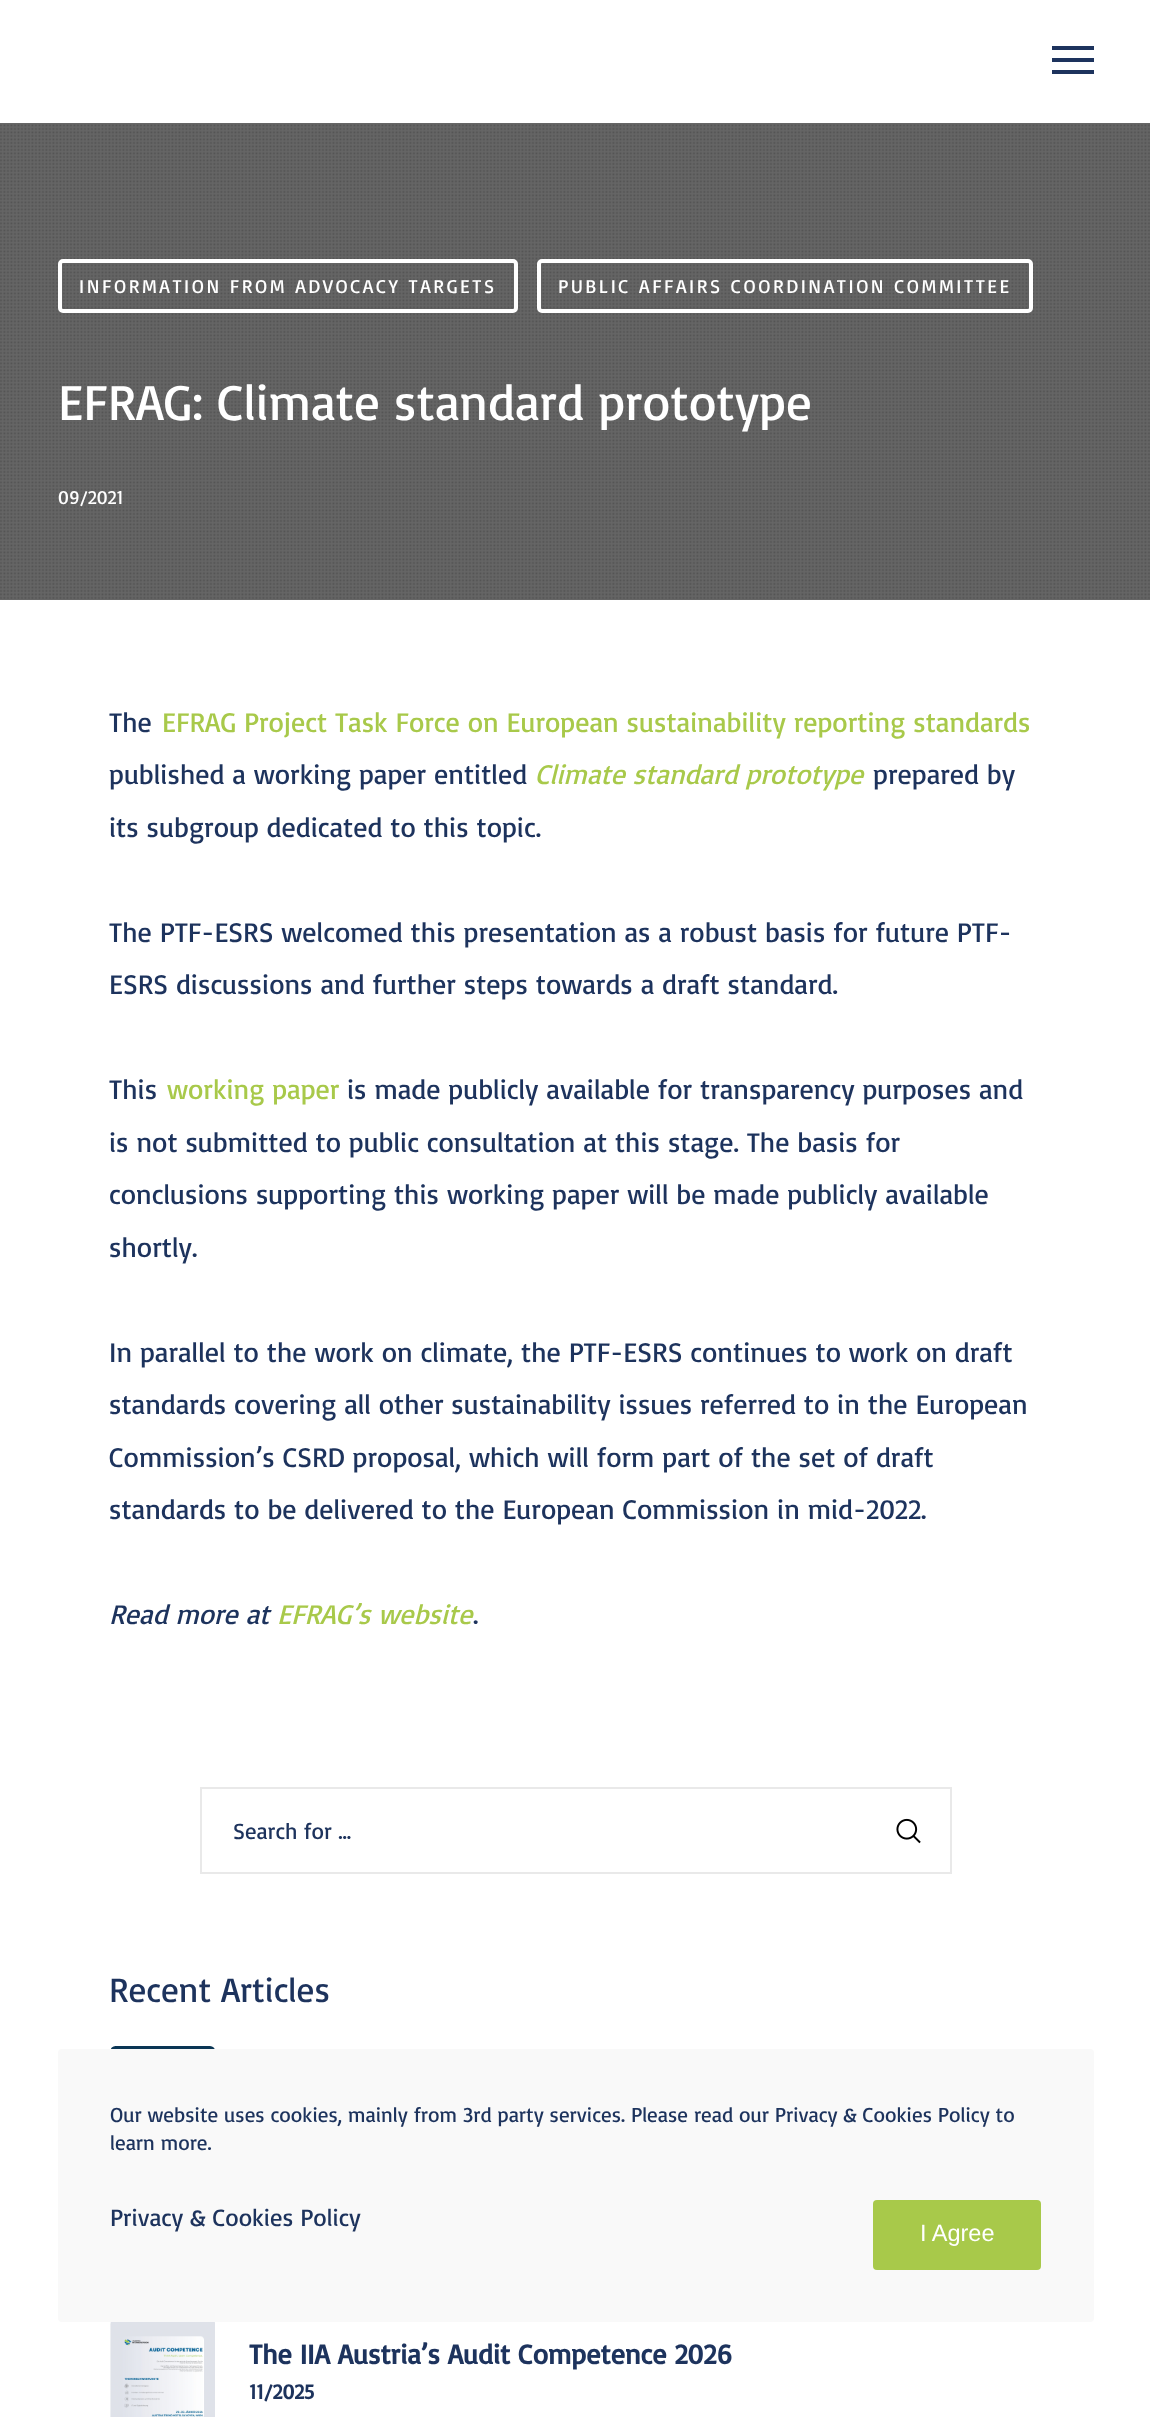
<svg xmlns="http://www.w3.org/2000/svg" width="1150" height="2417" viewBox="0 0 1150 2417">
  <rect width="100%" height="100%" fill="rgb(255,255,255)"/>
  <rect x="1052" y="46" width="42" height="4" fill="rgb(29,51,93)"/>
  <rect x="1052" y="58" width="42" height="4" fill="rgb(29,51,93)"/>
  <rect x="1052" y="70" width="42" height="4" fill="rgb(29,51,93)"/>
  <rect x="0" y="123" width="1150" height="477" fill="rgb(102,102,102)"/>
  <image x="0" y="124" width="1150" height="475" href="pic1.png"/>
  <rect x="60" y="261" width="456" height="50" rx="3" fill="none" stroke="rgb(255,255,255)" stroke-width="4"/>
  <text x="79" y="293" font-family="Basic" font-size="19.25" letter-spacing="2.6" fill="rgb(255,255,255)">INFORMATION FROM ADVOCACY TARGETS</text>
  <rect x="539" y="261" width="492" height="50" rx="3" fill="none" stroke="rgb(255,255,255)" stroke-width="4"/>
  <text x="558" y="293" font-family="Basic" font-size="19.25" letter-spacing="2.6" fill="rgb(255,255,255)">PUBLIC AFFAIRS COORDINATION COMMITTEE</text>
  <text x="58" y="420" font-family="Basic" font-size="50.75" fill="rgb(255,255,255)">EFRAG: Climate standard prototype</text>
  <text x="58" y="504" font-family="Basic" font-size="19.25" fill="rgb(255,255,255)">09/2021</text>
  <text x="109" y="732" font-family="Basic" font-size="28" fill="rgb(29,51,93)">The</text>
  <text x="162" y="732" font-family="Basic" font-size="28" fill="rgb(168,201,74)">EFRAG Project Task Force on European sustainability reporting standards</text>
  <text x="109" y="784" font-family="Basic" font-size="28" fill="rgb(29,51,93)">published a working paper entitled</text>
  <text x="535" y="784" font-family="Basic" font-size="28" font-style="italic" fill="rgb(168,201,74)">Climate standard prototype</text>
  <g font-family="Basic" font-size="28" fill="rgb(29,51,93)">
    <text x="873" y="784">prepared by</text>
    <text x="109" y="837">its subgroup dedicated to this topic.</text>
    <text>
      <tspan x="109" y="942">The PTF-ESRS welcomed this presentation as a robust basis for future PTF-</tspan>
      <tspan x="109" y="994">ESRS discussions and further steps towards a draft standard.</tspan>
    </text>
    <text x="109" y="1099">This</text>
  </g>
  <text x="167" y="1099" font-family="Basic" font-size="28" fill="rgb(168,201,74)">working paper</text>
  <g font-family="Basic" font-size="28" fill="rgb(29,51,93)">
    <text x="347" y="1099">is made publicly available for transparency purposes and</text>
    <text>
      <tspan x="109" y="1152">is not submitted to public consultation at this stage. The basis for</tspan>
      <tspan x="109" y="1204">conclusions supporting this working paper will be made publicly available</tspan>
      <tspan x="109" y="1257">shortly.</tspan>
    </text>
    <text>
      <tspan x="109" y="1362">In parallel to the work on climate, the PTF-ESRS continues to work on draft</tspan>
      <tspan x="109" y="1414">standards covering all other sustainability issues referred to in the European</tspan>
      <tspan x="109" y="1467">Commission’s CSRD proposal, which will form part of the set of draft</tspan>
      <tspan x="109" y="1519">standards to be delivered to the European Commission in mid-2022.</tspan>
    </text>
  </g>
  <text x="109" y="1624" font-family="Basic" font-size="28" font-style="italic" fill="rgb(29,51,93)">Read more at</text>
  <text x="277" y="1624" font-family="Basic" font-size="28" font-style="italic" fill="rgb(168,201,74)">EFRAG’s website</text>
  <text x="473" y="1624" font-family="Basic" font-size="28" fill="rgb(29,51,93)">.</text>
  <rect x="201" y="1788" width="750" height="85" fill="none" stroke="rgb(233,233,233)" stroke-width="2"/>
  <text x="233" y="1839" font-family="Basic" font-size="22.75" fill="rgb(29,51,93)">Search for ...</text>
  <image x="896" y="1818" width="25" height="26" href="pic2.png"/>
  <text x="109" y="2002" font-family="Basic" font-size="35" fill="rgb(29,51,93)">Recent Articles</text>
  <image x="111" y="2046" width="104" height="3" href="pic3.png"/>
  <image x="110" y="2322" width="105" height="95" href="pic4.png"/>
  <text x="249" y="2364" font-family="Basic" font-size="28" font-weight="bold" fill="rgb(29,51,93)">The IIA Austria’s Audit Competence 2026</text>
  <text x="249" y="2399" font-family="Basic" font-size="21" font-weight="bold" fill="rgb(29,51,93)">11/2025</text>
  <rect x="58" y="2049" width="1036" height="273" rx="4" fill="rgb(249,249,249)"/>
  <g font-family="Basic" font-size="21" fill="rgb(29,51,93)">
    <text>
      <tspan x="110" y="2122">Our website uses cookies, mainly from 3rd party services. Please read our Privacy &amp; Cookies Policy to</tspan>
      <tspan x="110" y="2150">learn more.</tspan>
    </text>
  </g>
  <text x="110" y="2226" font-family="Basic" font-size="24.5" fill="rgb(29,51,93)">Privacy &amp; Cookies Policy</text>
  <rect x="873" y="2200" width="168" height="70" rx="4" fill="rgb(168,201,74)"/>
  <text x="920" y="2241" font-family="Liberation Sans" font-size="23.5" fill="rgb(255,255,255)">I Agree</text>
</svg>
